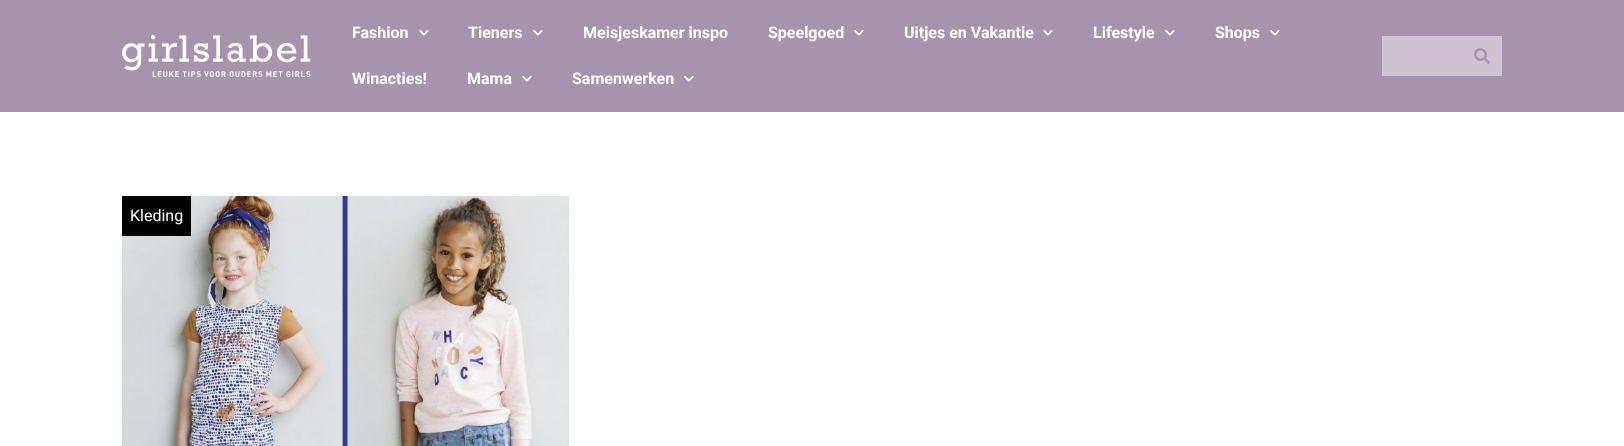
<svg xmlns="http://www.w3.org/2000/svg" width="1624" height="446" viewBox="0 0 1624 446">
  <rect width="100%" height="100%" fill="rgb(255,255,255)"/>
  <rect x="0" y="0" width="1624" height="112" fill="rgb(166,148,173)"/>
  <image x="122" y="35" width="189" height="42" href="pic1.png"/>
  <text x="352" y="38" font-family="Roboto" font-size="16" font-weight="bold" fill="rgb(255,255,255)">Fashion</text>
  <image x="419" y="30" width="10" height="6" href="pic2.png"/>
  <text x="468" y="38" font-family="Roboto" font-size="16" font-weight="bold" fill="rgb(255,255,255)">Tieners</text>
  <image x="533" y="30" width="10" height="6" href="pic2.png"/>
  <g font-family="Roboto" font-size="16" font-weight="bold" fill="rgb(255,255,255)">
    <text x="583" y="38">Meisjeskamer inspo</text>
    <text x="768" y="38">Speelgoed</text>
  </g>
  <image x="854" y="30" width="10" height="6" href="pic2.png"/>
  <text x="904" y="38" font-family="Roboto" font-size="16" font-weight="bold" fill="rgb(255,255,255)">Uitjes en Vakantie</text>
  <image x="1043" y="30" width="10" height="6" href="pic2.png"/>
  <text x="1093" y="38" font-family="Roboto" font-size="16" font-weight="bold" fill="rgb(255,255,255)">Lifestyle</text>
  <image x="1165" y="30" width="10" height="6" href="pic2.png"/>
  <text x="1215" y="38" font-family="Roboto" font-size="16" font-weight="bold" fill="rgb(255,255,255)">Shops</text>
  <image x="1270" y="30" width="10" height="6" href="pic2.png"/>
  <g font-family="Roboto" font-size="16" font-weight="bold" fill="rgb(255,255,255)">
    <text x="352" y="84">Winacties!</text>
    <text x="467" y="84">Mama</text>
  </g>
  <image x="522" y="76" width="10" height="6" href="pic2.png"/>
  <text x="572" y="84" font-family="Roboto" font-size="16" font-weight="bold" fill="rgb(255,255,255)">Samenwerken</text>
  <image x="684" y="76" width="10" height="6" href="pic2.png"/>
  <rect x="1382" y="36" width="120" height="40" fill="rgb(206,196,209)"/>
  <image x="1474" y="48" width="16" height="16" href="pic3.png"/>
  <image x="122" y="196" width="447" height="250" href="pic4.png"/>
  <rect x="122" y="196" width="69" height="40" fill="rgb(0,0,0)"/>
  <text x="130" y="221" font-family="Roboto" font-size="16" fill="rgb(255,255,255)">Kleding</text>
</svg>
